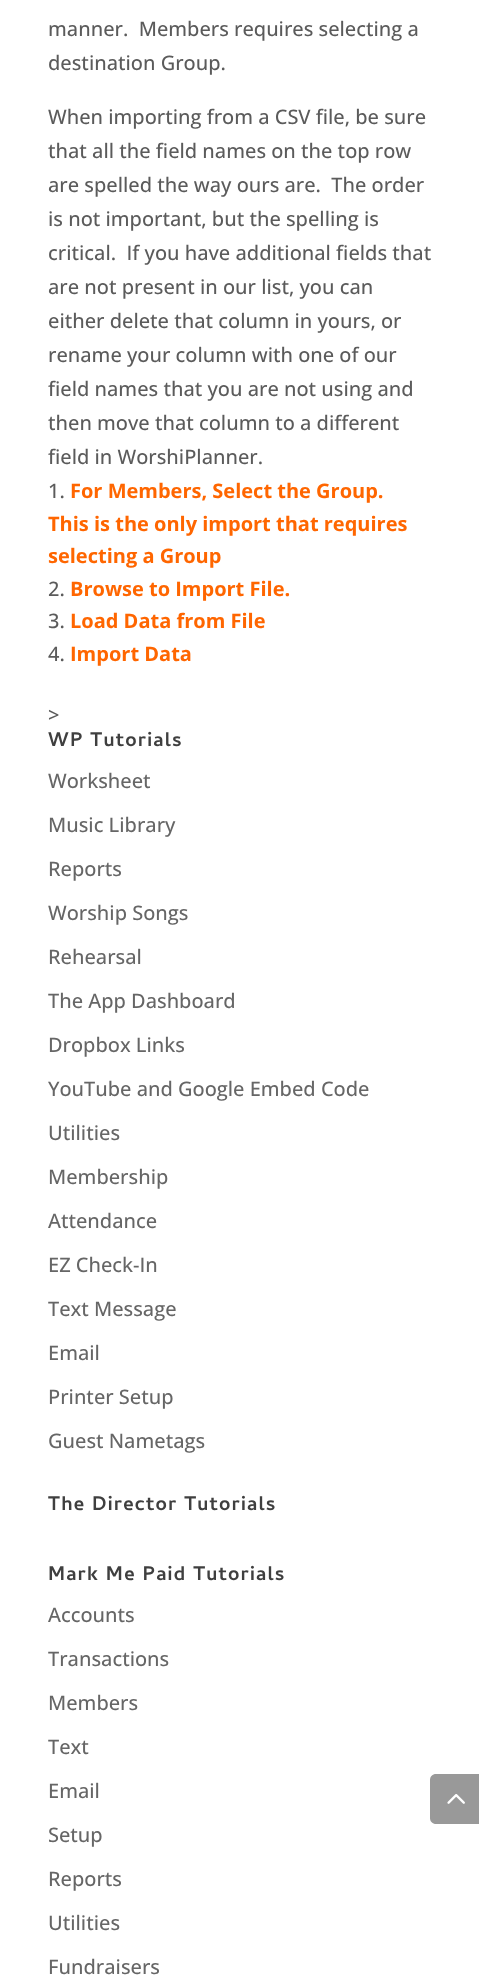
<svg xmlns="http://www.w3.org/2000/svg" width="479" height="1980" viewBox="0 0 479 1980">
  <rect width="100%" height="100%" fill="rgb(255,255,255)"/>
  <g font-family="Open Sans" font-size="20" font-weight="500" fill="rgb(91,91,91)">
    <text xml:space="preserve"><tspan x="48" y="36">manner.  Members requires selecting a</tspan><tspan x="48" y="70">destination Group.</tspan></text>
    <text xml:space="preserve"><tspan x="48" y="124">When importing from a CSV file, be sure</tspan><tspan x="48" y="158">that all the field names on the top row</tspan><tspan x="48" y="192">are spelled the way ours are.  The order</tspan><tspan x="48" y="226">is not important, but the spelling is</tspan><tspan x="48" y="260">critical.  If you have additional fields that</tspan><tspan x="48" y="294">are not present in our list, you can</tspan><tspan x="48" y="328">either delete that column in yours, or</tspan><tspan x="48" y="362">rename your column with one of our</tspan><tspan x="48" y="396">field names that you are not using and</tspan><tspan x="48" y="430">then move that column to a different</tspan><tspan x="48" y="464">field in WorshiPlanner.</tspan><tspan x="48" y="498">1.</tspan></text>
  </g>
  <g font-family="Open Sans" font-size="20" font-weight="bold" fill="rgb(255,102,0)">
    <text x="70" y="498">For Members, Select the Group.</text>
    <text>
      <tspan x="48" y="531">This is the only import that requires</tspan>
      <tspan x="48" y="563">selecting a Group</tspan>
    </text>
  </g>
  <text x="48" y="596" font-family="Open Sans" font-size="20" font-weight="500" fill="rgb(91,91,91)">2.</text>
  <text x="70" y="596" font-family="Open Sans" font-size="20" font-weight="bold" fill="rgb(255,102,0)">Browse to Import File.</text>
  <text x="48" y="628" font-family="Open Sans" font-size="20" font-weight="500" fill="rgb(91,91,91)">3.</text>
  <text x="70" y="628" font-family="Open Sans" font-size="20" font-weight="bold" fill="rgb(255,102,0)">Load Data from File</text>
  <text x="48" y="661" font-family="Open Sans" font-size="20" font-weight="500" fill="rgb(91,91,91)">4.</text>
  <text x="70" y="661" font-family="Open Sans" font-size="20" font-weight="bold" fill="rgb(255,102,0)">Import Data</text>
  <text x="48" y="722" font-family="Open Sans" font-size="20" font-weight="500" fill="rgb(91,91,91)">&gt;</text>
  <text x="48" y="746" font-family="Cambay" font-size="20" font-weight="bold" letter-spacing="1.25" fill="rgb(63,63,63)">WP Tutorials</text>
  <g font-family="Open Sans" font-size="20" font-weight="500" fill="rgb(102,102,102)">
    <text x="48" y="788">Worksheet</text>
    <text x="48" y="832">Music Library</text>
    <text x="48" y="876">Reports</text>
    <text x="48" y="920">Worship Songs</text>
    <text x="48" y="964">Rehearsal</text>
    <text x="48" y="1008">The App Dashboard</text>
    <text x="48" y="1052">Dropbox Links</text>
    <text x="48" y="1096">YouTube and Google Embed Code</text>
    <text x="48" y="1140">Utilities</text>
    <text x="48" y="1184">Membership</text>
    <text x="48" y="1228">Attendance</text>
    <text x="48" y="1272">EZ Check-In</text>
    <text x="48" y="1316">Text Message</text>
    <text x="48" y="1360">Email</text>
    <text x="48" y="1404">Printer Setup</text>
    <text x="48" y="1448">Guest Nametags</text>
  </g>
  <g font-family="Cambay" font-size="20" font-weight="bold" letter-spacing="1.25" fill="rgb(63,63,63)">
    <text x="48" y="1510">The Director Tutorials</text>
    <text x="48" y="1580">Mark Me Paid Tutorials</text>
  </g>
  <g font-family="Open Sans" font-size="20" font-weight="500" fill="rgb(102,102,102)">
    <text x="48" y="1622">Accounts</text>
    <text x="48" y="1666">Transactions</text>
    <text x="48" y="1710">Members</text>
    <text x="48" y="1754">Text</text>
    <text x="48" y="1798">Email</text>
    <text x="48" y="1842">Setup</text>
    <text x="48" y="1886">Reports</text>
    <text x="48" y="1930">Utilities</text>
    <text x="48" y="1974">Fundraisers</text>
  </g>
  <path d="M436 1774H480V1824H436C432.5 1824 430 1821.5 430 1818V1780C430 1776.5 432.5 1774 436 1774Z" fill="rgb(153,153,153)"/>
  <image x="447" y="1794" width="18" height="10" href="pic1.png"/>
</svg>
